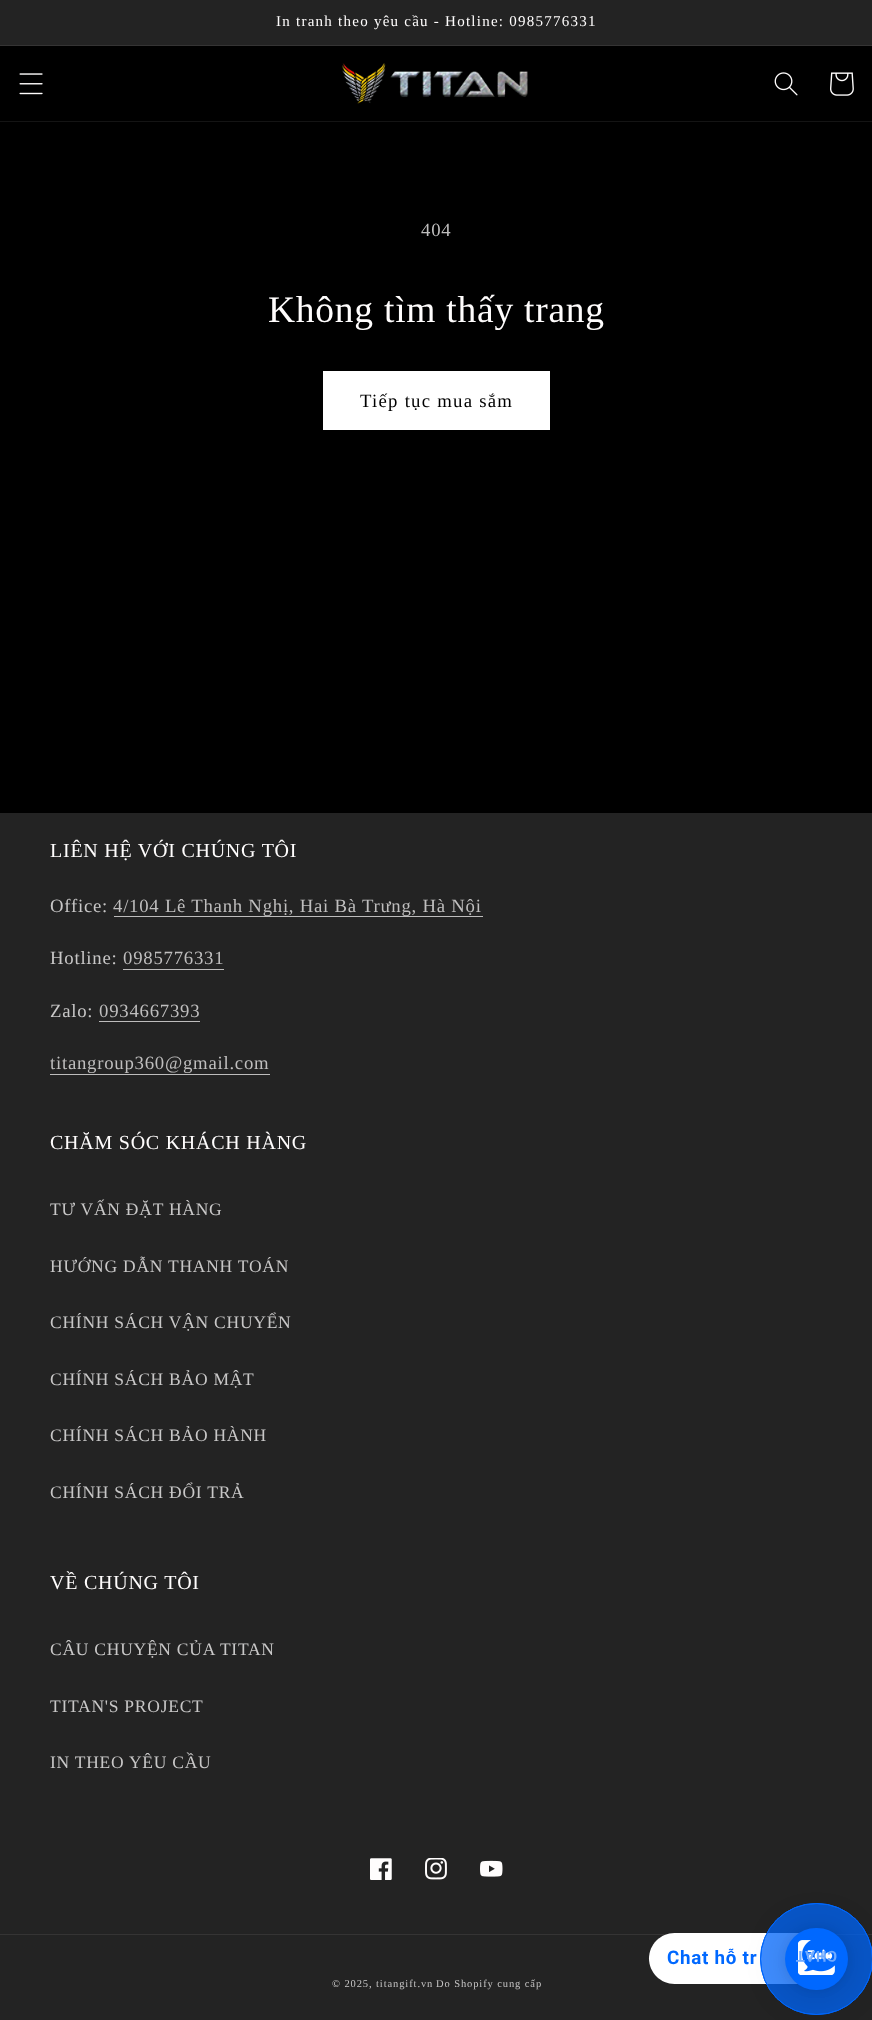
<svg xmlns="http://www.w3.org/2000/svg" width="872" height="2020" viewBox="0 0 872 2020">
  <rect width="100%" height="100%" fill="rgb(0,0,0)"/>
  <rect x="0" y="0" width="872" height="45" fill="rgb(35,35,35)"/>
  <rect x="0" y="45" width="872" height="1" fill="rgb(53,52,52)"/>
  <text x="276" y="26" font-family="Liberation Serif" font-size="15" letter-spacing="1.25" fill="rgb(255,253,253)">In tranh theo yêu cầu - Hotline: 0985776331</text>
  <rect x="0" y="121" width="872" height="1" fill="rgb(20,20,20)"/>
  <image x="19" y="73" width="24" height="22" href="pic1.png"/>
  <image x="342" y="63" width="186" height="41" href="pic2.png"/>
  <image x="774" y="72" width="24" height="24" href="pic3.png"/>
  <image x="830" y="72" width="24" height="24" href="pic4.png"/>
  <text x="421" y="236" font-family="Liberation Serif" font-size="18.75" letter-spacing="0.75" fill="rgb(191,190,190)">404</text>
  <text x="268" y="322" font-family="Liberation Serif" font-size="37.5" letter-spacing="0.75" fill="rgb(255,253,253)">Không tìm thấy trang</text>
  <rect x="323" y="371" width="227" height="59" fill="rgb(255,255,255)"/>
  <text x="360" y="407" font-family="Liberation Serif" font-size="18.75" letter-spacing="1.25" fill="rgb(0,0,0)">Tiếp tục mua sắm</text>
  <rect x="0" y="813" width="872" height="1207" fill="rgb(35,35,35)"/>
  <text x="50" y="857" font-family="Liberation Serif" font-size="20" letter-spacing="0.75" fill="rgb(255,253,253)">LIÊN HỆ VỚI CHÚNG TÔI</text>
  <text x="50" y="912" font-family="Liberation Serif" font-size="18.75" letter-spacing="0.75" fill="rgb(200,199,199)">Office:</text>
  <rect x="114" y="916" width="369" height="1" fill="rgb(189,188,188)"/>
  <text x="113" y="912" font-family="Liberation Serif" font-size="18.75" letter-spacing="0.75" fill="rgb(191,190,190)">4/104 Lê Thanh Nghị, Hai Bà Trưng, Hà Nội</text>
  <text x="50" y="964" font-family="Liberation Serif" font-size="18.75" letter-spacing="0.75" fill="rgb(200,199,199)">Hotline:</text>
  <text x="123" y="964" font-family="Liberation Serif" font-size="18.75" letter-spacing="0.75" fill="rgb(191,190,190)">0985776331</text>
  <rect x="123" y="969" width="101" height="1" fill="rgb(189,188,188)"/>
  <text x="50" y="1017" font-family="Liberation Serif" font-size="18.75" letter-spacing="0.75" fill="rgb(200,199,199)">Zalo:</text>
  <text x="99" y="1017" font-family="Liberation Serif" font-size="18.75" letter-spacing="0.75" fill="rgb(191,190,190)">0934667393</text>
  <rect x="99" y="1021" width="101" height="1" fill="rgb(189,188,188)"/>
  <text x="50" y="1069" font-family="Liberation Serif" font-size="18.75" letter-spacing="0.75" fill="rgb(191,190,190)">titangroup360@gmail.com</text>
  <rect x="50" y="1074" width="220" height="1" fill="rgb(189,188,188)"/>
  <text x="50" y="1149" font-family="Liberation Serif" font-size="20" letter-spacing="0.75" fill="rgb(255,253,253)">CHĂM SÓC KHÁCH HÀNG</text>
  <g font-family="Liberation Serif" font-size="17.5" letter-spacing="0.75" fill="rgb(200,199,199)">
    <text x="50" y="1215">TƯ VẤN ĐẶT HÀNG</text>
    <text x="50" y="1272">HƯỚNG DẪN THANH TOÁN</text>
    <text x="50" y="1328">CHÍNH SÁCH VẬN CHUYỂN</text>
    <text x="50" y="1385">CHÍNH SÁCH BẢO MẬT</text>
    <text x="50" y="1441">CHÍNH SÁCH BẢO HÀNH</text>
    <text x="50" y="1498">CHÍNH SÁCH ĐỔI TRẢ</text>
  </g>
  <text x="50" y="1589" font-family="Liberation Serif" font-size="20" letter-spacing="0.75" fill="rgb(255,253,253)">VỀ CHÚNG TÔI</text>
  <g font-family="Liberation Serif" font-size="17.5" letter-spacing="0.75" fill="rgb(200,199,199)">
    <text x="50" y="1655">CÂU CHUYỆN CỦA TITAN</text>
    <text x="50" y="1712">TITAN'S PROJECT</text>
    <text x="50" y="1768">IN THEO YÊU CẦU</text>
  </g>
  <image x="370" y="1858" width="22" height="22" href="pic5.png"/>
  <image x="425" y="1858" width="22" height="22" href="pic6.png"/>
  <image x="480" y="1860" width="23" height="17" href="pic7.png"/>
  <rect x="0" y="1934" width="872" height="1" fill="rgb(53,52,52)"/>
  <g font-family="Liberation Serif" font-size="10.5" letter-spacing="0.9" fill="rgb(200,199,199)">
    <text x="332" y="1987">© 2025, titangift.vn</text>
    <text x="436" y="1987">Do Shopify cung cấp</text>
  </g>
  <path d="M674.5 1933H800V1984H674.5C660.5 1984 649 1972.5 649 1958.5C649 1944.5 660.5 1933 674.5 1933Z" fill="rgb(255,255,255)"/>
  <text x="667" y="1964" font-family="Roboto" font-size="18.75" font-weight="bold" letter-spacing="0.75" fill="rgb(0,104,255)">Chat hỗ tr</text>
  <rect x="760.5" y="1903.5" width="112" height="111" rx="55.5" fill="rgba(0,104,255,0.5)" stroke="rgb(0,104,255)"/>
  <rect x="760.5" y="1903.5" width="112" height="111" rx="55.5" fill="rgba(0,104,255,0.5)" stroke="rgb(0,104,255)"/>
  <rect x="785" y="1930" width="63" height="63" rx="31.5" fill="rgba(0,0,0,0.16)" filter="blur(20px)"/>
  <rect x="785" y="1929" width="63" height="62" rx="31" fill="rgba(0,0,0,0.06)" filter="blur(4px)"/>
  <rect x="785" y="1928" width="63" height="62" rx="31" fill="rgb(0,104,255)"/>
  <image x="798" y="1940" width="37" height="35" href="pic8.png"/>
  <text x="837" y="1951" transform="rotate(180 837 1951)" font-family="Roboto" font-size="15" font-weight="bold" letter-spacing="0.75" fill="rgb(113,171,255)">CHAT</text>
</svg>
